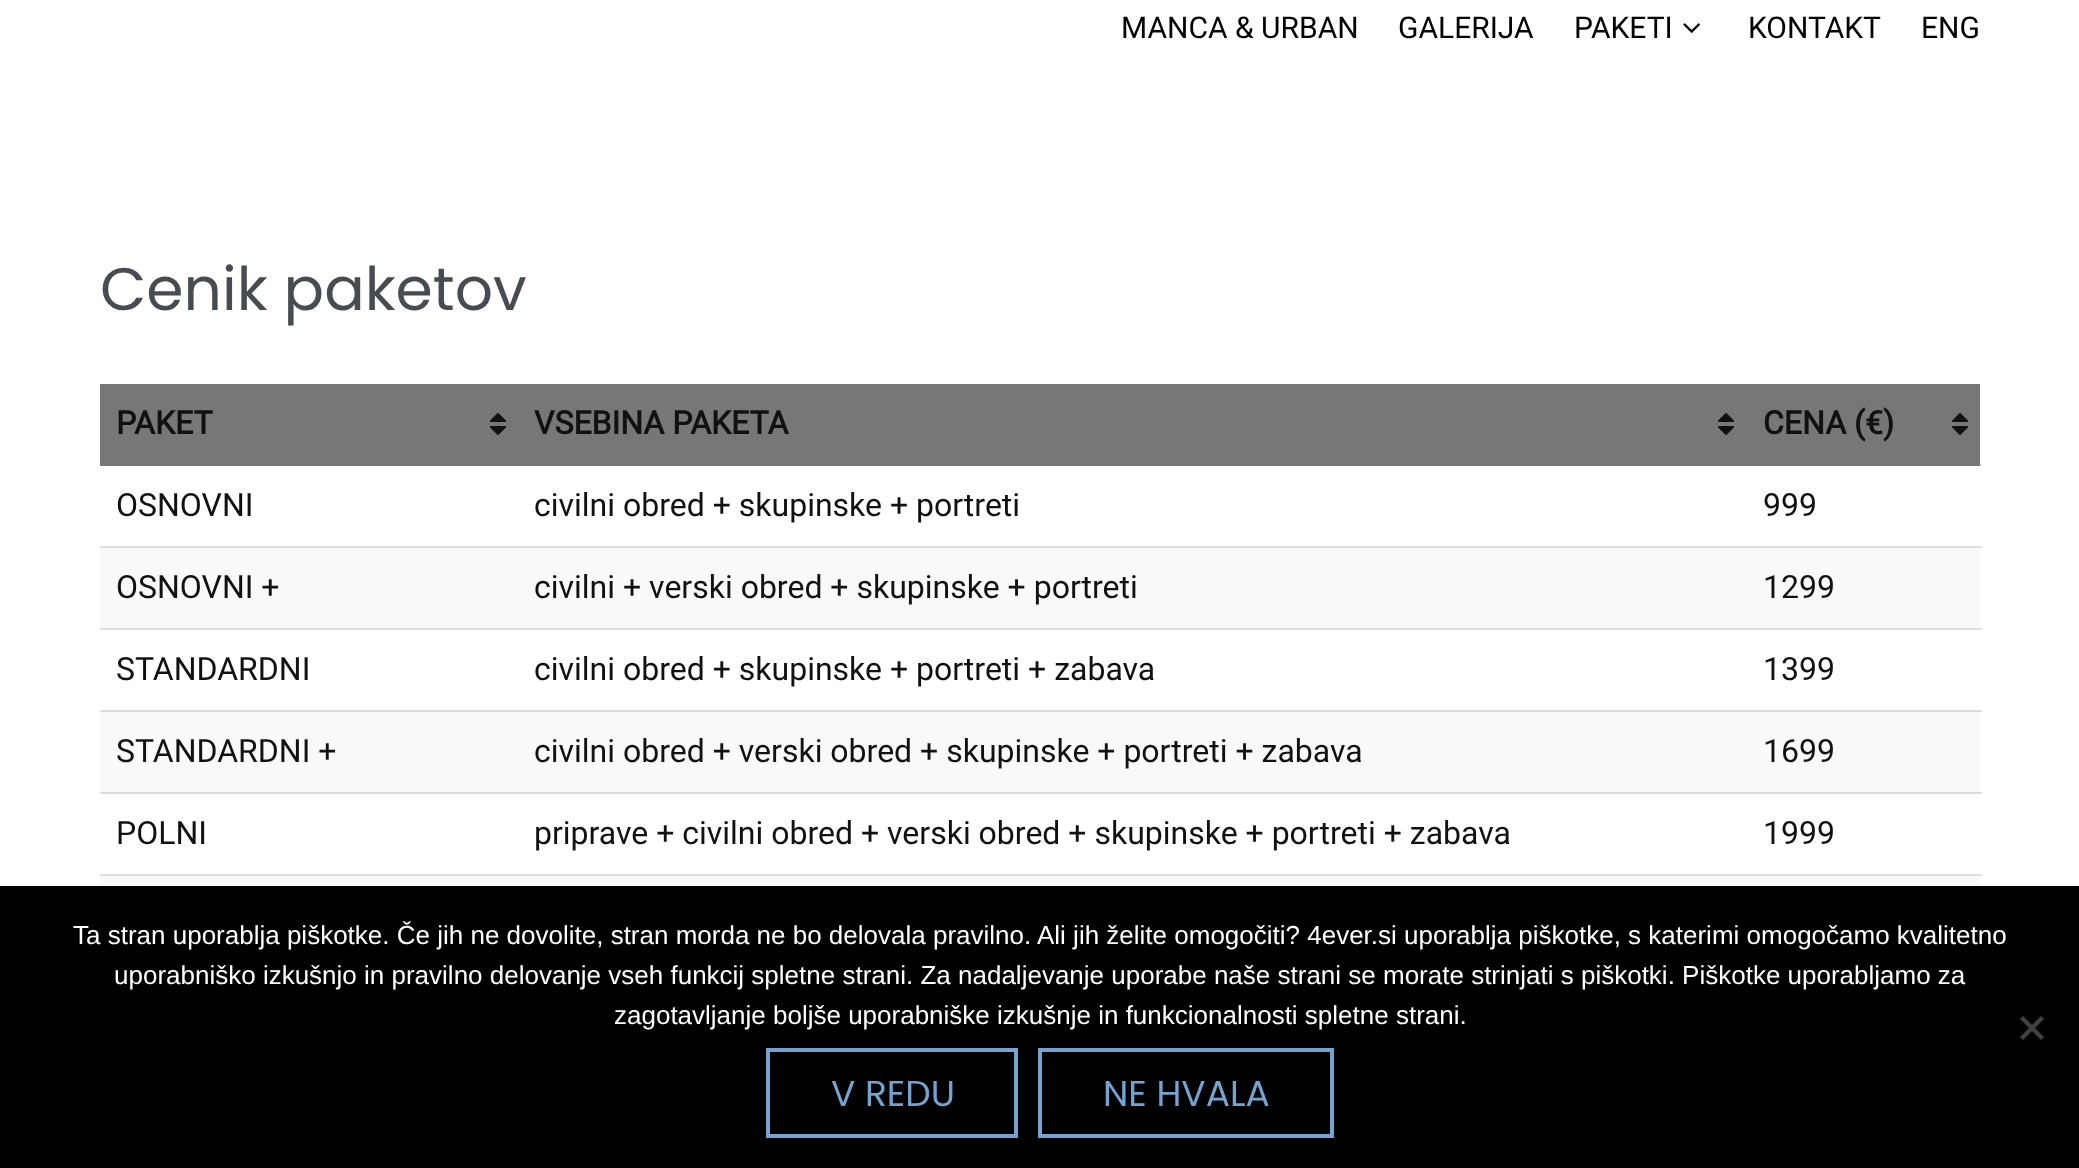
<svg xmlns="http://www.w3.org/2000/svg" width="2079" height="1168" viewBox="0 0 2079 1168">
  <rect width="100%" height="100%" fill="rgb(255,255,255)"/>
  <g font-family="Roboto" font-size="30" fill="rgb(0,0,0)">
    <text x="1121" y="38">MANCA &amp; URBAN</text>
    <text x="1398" y="38">GALERIJA</text>
    <text x="1574" y="38">PAKETI</text>
  </g>
  <image x="1683" y="23" width="17" height="10" href="pic1.png"/>
  <g font-family="Roboto" font-size="30" fill="rgb(0,0,0)">
    <text x="1748" y="38">KONTAKT</text>
    <text x="1921" y="38">ENG</text>
  </g>
  <text x="100" y="310" font-family="Poppins" font-size="60" fill="rgb(70,76,81)">Cenik paketov</text>
  <rect x="100" y="384" width="1880" height="82" fill="rgb(119,119,119)"/>
  <text x="116" y="434" font-family="Roboto" font-size="32" font-weight="bold" fill="rgb(17,17,17)">PAKET</text>
  <image x="490" y="413" width="16" height="22" href="pic2.png"/>
  <text x="534" y="434" font-family="Roboto" font-size="32" font-weight="bold" fill="rgb(17,17,17)">VSEBINA PAKETA</text>
  <image x="1718" y="413" width="16" height="22" href="pic2.png"/>
  <text x="1763" y="434" font-family="Roboto" font-size="32" font-weight="bold" fill="rgb(17,17,17)">CENA (€)</text>
  <image x="1952" y="413" width="16" height="22" href="pic2.png"/>
  <g font-family="Roboto" font-size="32" fill="rgb(17,17,17)">
    <text x="116" y="516">OSNOVNI</text>
    <text x="534" y="516">civilni obred + skupinske + portreti</text>
  </g>
  <rect x="1980" y="464" width="2" height="2" fill="rgb(221,221,221)"/>
  <text x="1763" y="516" font-family="Roboto" font-size="32" fill="rgb(17,17,17)">999</text>
  <rect x="100" y="548" width="1880" height="80" fill="rgb(249,249,249)"/>
  <g font-family="Roboto" font-size="32" fill="rgb(17,17,17)">
    <text x="116" y="598">OSNOVNI +</text>
    <text x="534" y="598">civilni + verski obred + skupinske + portreti</text>
  </g>
  <rect x="100" y="546" width="1882" height="2" fill="rgb(221,221,221)"/>
  <g font-family="Roboto" font-size="32" fill="rgb(17,17,17)">
    <text x="1763" y="598">1299</text>
    <text x="116" y="680">STANDARDNI</text>
    <text x="534" y="680">civilni obred + skupinske + portreti + zabava</text>
  </g>
  <rect x="100" y="628" width="1882" height="2" fill="rgb(221,221,221)"/>
  <text x="1763" y="680" font-family="Roboto" font-size="32" fill="rgb(17,17,17)">1399</text>
  <rect x="100" y="712" width="1880" height="80" fill="rgb(249,249,249)"/>
  <g font-family="Roboto" font-size="32" fill="rgb(17,17,17)">
    <text x="116" y="762">STANDARDNI +</text>
    <text x="534" y="762">civilni obred + verski obred + skupinske + portreti + zabava</text>
  </g>
  <rect x="100" y="710" width="1882" height="2" fill="rgb(221,221,221)"/>
  <g font-family="Roboto" font-size="32" fill="rgb(17,17,17)">
    <text x="1763" y="762">1699</text>
    <text x="116" y="844">POLNI</text>
    <text x="534" y="844">priprave + civilni obred + verski obred + skupinske + portreti + zabava</text>
  </g>
  <rect x="100" y="792" width="1882" height="2" fill="rgb(221,221,221)"/>
  <text x="1763" y="844" font-family="Roboto" font-size="32" fill="rgb(17,17,17)">1999</text>
  <rect x="100" y="874" width="1882" height="2" fill="rgb(221,221,221)"/>
  <rect x="100" y="876" width="1880" height="10" fill="rgb(249,249,249)"/>
  <rect x="0" y="886" width="2079" height="282" fill="rgb(0,0,0)"/>
  <g font-family="Liberation Sans" font-size="26" fill="rgb(255,255,255)">
    <text x="73" y="944">Ta stran uporablja piškotke. Če jih ne dovolite, stran morda ne bo delovala pravilno. Ali jih želite omogočiti? 4ever.si uporablja piškotke, s katerimi omogočamo kvalitetno</text>
    <text x="114" y="984">uporabniško izkušnjo in pravilno delovanje vseh funkcij spletne strani. Za nadaljevanje uporabe naše strani se morate strinjati s piškotki. Piškotke uporabljamo za</text>
    <text x="614" y="1024">zagotavljanje boljše uporabniške izkušnje in funkcionalnosti spletne strani.</text>
  </g>
  <path d="M2041 1016L2044 1019L2023 1040L2020 1037Z" fill="rgb(64,64,64)"/>
  <path d="M2020 1019L2023 1016L2044 1037L2041 1040Z" fill="rgb(64,64,64)"/>
  <rect x="768" y="1050" width="248" height="86" fill="none" stroke="rgb(117,163,209)" stroke-width="4"/>
  <text x="831" y="1106" font-family="Poppins" font-size="36" fill="rgb(117,163,209)">V REDU</text>
  <rect x="1040" y="1050" width="292" height="86" fill="none" stroke="rgb(117,163,209)" stroke-width="4"/>
  <text x="1103" y="1106" font-family="Poppins" font-size="36" fill="rgb(117,163,209)">NE HVALA</text>
</svg>
